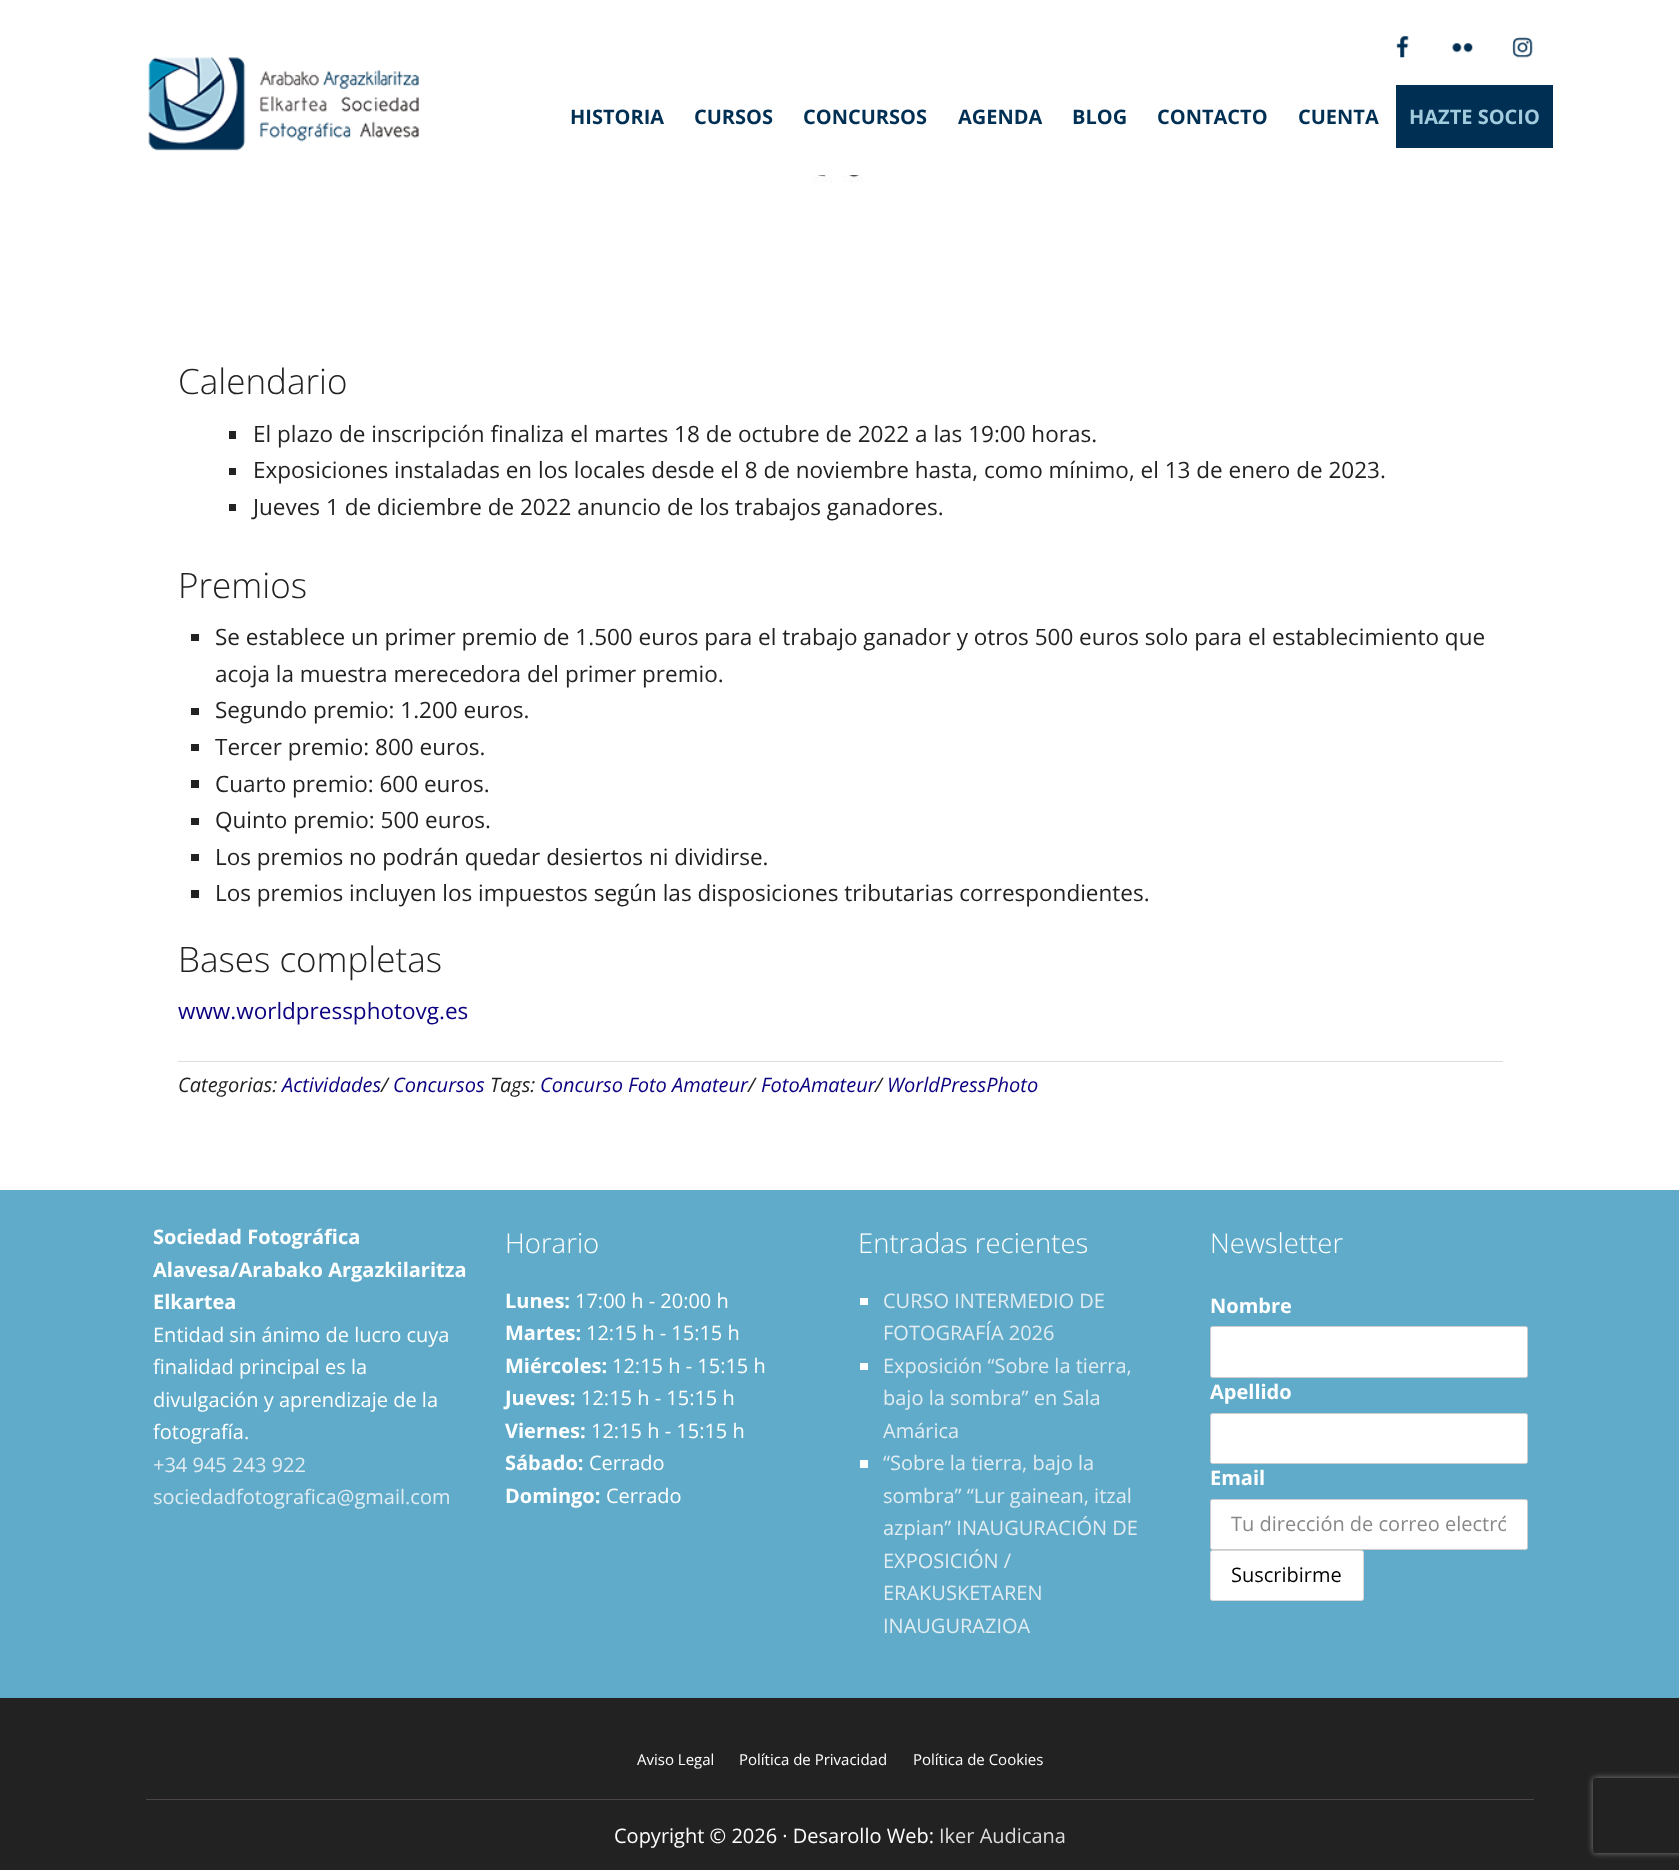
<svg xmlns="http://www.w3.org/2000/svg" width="1679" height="1870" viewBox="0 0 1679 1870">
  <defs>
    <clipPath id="clip1"><rect x="1231" y="1510" width="275" height="28"/></clipPath>
    <clipPath id="clip2"><path d="M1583 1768H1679V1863H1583ZM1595.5 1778H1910.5C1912 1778 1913 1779 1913 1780.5V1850.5C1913 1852 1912 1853 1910.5 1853H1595.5C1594 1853 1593 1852 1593 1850.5V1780.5C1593 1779 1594 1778 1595.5 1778Z" clip-rule="evenodd"/></clipPath>
  </defs>
  <rect width="100%" height="100%" fill="rgb(255,255,255)"/>
  <image x="148" y="57" width="271" height="94" href="pic1.png"/>
  <image x="1396" y="36" width="13" height="22" href="pic2.png"/>
  <image x="1452" y="43" width="21" height="10" href="pic3.png"/>
  <image x="1512" y="37" width="21" height="21" href="pic4.png"/>
  <g font-family="Open Sans" font-size="20" font-weight="bold" fill="rgb(0,47,84)">
    <text x="570" y="124">HISTORIA</text>
    <text x="694" y="124">CURSOS</text>
    <text x="803" y="124">CONCURSOS</text>
    <text x="958" y="124">AGENDA</text>
    <text x="1072" y="124">BLOG</text>
    <text x="1157" y="124">CONTACTO</text>
    <text x="1298" y="124">CUENTA</text>
  </g>
  <rect x="1396" y="85" width="157" height="63" fill="rgb(0,47,84)"/>
  <text x="1409" y="124" font-family="Open Sans" font-size="20" font-weight="bold" fill="rgb(162,204,222)">HAZTE SOCIO</text>
  <image x="712" y="175" width="251" height="8" href="pic5.png"/>
  <text x="178" y="394" font-family="Open Sans" font-size="35" font-weight="300" fill="rgb(34,34,34)">Calendario</text>
  <rect x="229" y="431" width="7" height="8" fill="rgb(34,34,34)"/>
  <text x="253" y="442" font-family="Open Sans" font-size="22.5" fill="rgb(34,34,34)">El plazo de inscripción finaliza el martes 18 de octubre de 2022 a las 19:00 horas.</text>
  <rect x="229" y="468" width="7" height="7" fill="rgb(34,34,34)"/>
  <text x="253" y="478" font-family="Open Sans" font-size="22.5" fill="rgb(34,34,34)">Exposiciones instaladas en los locales desde el 8 de noviembre hasta, como mínimo, el 13 de enero de 2023.</text>
  <rect x="229" y="504" width="7" height="7" fill="rgb(34,34,34)"/>
  <text x="253" y="515" font-family="Open Sans" font-size="22.5" fill="rgb(34,34,34)">Jueves 1 de diciembre de 2022 anuncio de los trabajos ganadores.</text>
  <text x="178" y="598" font-family="Open Sans" font-size="35" font-weight="300" fill="rgb(34,34,34)">Premios</text>
  <rect x="191" y="634" width="8" height="7" fill="rgb(34,34,34)"/>
  <g font-family="Open Sans" font-size="22.5" fill="rgb(34,34,34)">
    <text>
      <tspan x="215" y="645">Se establece un primer premio de 1.500 euros para el trabajo ganador y otros 500 euros solo para el establecimiento que</tspan>
      <tspan x="215" y="682">acoja la muestra merecedora del primer premio.</tspan>
    </text>
  </g>
  <rect x="191" y="708" width="8" height="7" fill="rgb(34,34,34)"/>
  <text x="215" y="718" font-family="Open Sans" font-size="22.5" fill="rgb(34,34,34)">Segundo premio: 1.200 euros.</text>
  <rect x="191" y="744" width="8" height="7" fill="rgb(34,34,34)"/>
  <text x="215" y="755" font-family="Open Sans" font-size="22.5" fill="rgb(34,34,34)">Tercer premio: 800 euros.</text>
  <rect x="191" y="780" width="8" height="8" fill="rgb(34,34,34)"/>
  <text x="215" y="792" font-family="Open Sans" font-size="22.5" fill="rgb(34,34,34)">Cuarto premio: 600 euros.</text>
  <rect x="191" y="818" width="8" height="7" fill="rgb(34,34,34)"/>
  <text x="215" y="828" font-family="Open Sans" font-size="22.5" fill="rgb(34,34,34)">Quinto premio: 500 euros.</text>
  <rect x="191" y="854" width="8" height="7" fill="rgb(34,34,34)"/>
  <text x="215" y="865" font-family="Open Sans" font-size="22.5" fill="rgb(34,34,34)">Los premios no podrán quedar desiertos ni dividirse.</text>
  <rect x="191" y="890" width="8" height="8" fill="rgb(34,34,34)"/>
  <text x="215" y="901" font-family="Open Sans" font-size="22.5" fill="rgb(34,34,34)">Los premios incluyen los impuestos según las disposiciones tributarias correspondientes.</text>
  <text x="178" y="972" font-family="Open Sans" font-size="35" font-weight="300" fill="rgb(34,34,34)">Bases completas</text>
  <text x="178" y="1019" font-family="Open Sans" font-size="22.5" fill="rgb(11,0,128)">www.worldpressphotovg.es</text>
  <rect x="178" y="1061" width="1325" height="1" fill="rgb(221,221,221)"/>
  <text x="178" y="1092" font-family="Open Sans" font-size="20" font-style="italic" fill="rgb(34,34,34)">Categorias:</text>
  <text x="282" y="1092" font-family="Open Sans" font-size="20" font-style="italic" fill="rgb(11,0,128)">Actividades</text>
  <text x="381" y="1092" font-family="Open Sans" font-size="20" font-style="italic" fill="rgb(34,34,34)">/</text>
  <text x="393" y="1092" font-family="Open Sans" font-size="20" font-style="italic" fill="rgb(11,0,128)">Concursos</text>
  <text x="490" y="1092" font-family="Open Sans" font-size="20" font-style="italic" fill="rgb(34,34,34)">Tags:</text>
  <text x="540" y="1092" font-family="Open Sans" font-size="20" font-style="italic" fill="rgb(11,0,128)">Concurso Foto Amateur</text>
  <text x="748" y="1092" font-family="Open Sans" font-size="20" font-style="italic" fill="rgb(34,34,34)">/</text>
  <text x="761" y="1092" font-family="Open Sans" font-size="20" font-style="italic" fill="rgb(11,0,128)">FotoAmateur</text>
  <text x="875" y="1092" font-family="Open Sans" font-size="20" font-style="italic" fill="rgb(34,34,34)">/</text>
  <text x="887" y="1092" font-family="Open Sans" font-size="20" font-style="italic" fill="rgb(11,0,128)">WorldPressPhoto</text>
  <rect x="0" y="1190" width="1679" height="508" fill="rgb(95,171,201)"/>
  <g font-family="Open Sans" font-size="20" font-weight="bold" fill="rgb(255,255,255)">
    <text>
      <tspan x="153" y="1244">Sociedad Fotográfica</tspan>
      <tspan x="153" y="1277">Alavesa/Arabako Argazkilaritza</tspan>
      <tspan x="153" y="1309">Elkartea</tspan>
    </text>
  </g>
  <g font-family="Open Sans" font-size="20" fill="rgb(255,255,255)">
    <text>
      <tspan x="153" y="1342">Entidad sin ánimo de lucro cuya</tspan>
      <tspan x="153" y="1374">finalidad principal es la</tspan>
      <tspan x="153" y="1407">divulgación y aprendizaje de la</tspan>
      <tspan x="153" y="1439">fotografía.</tspan>
    </text>
  </g>
  <g font-family="Open Sans" font-size="20" fill="rgb(225,236,242)">
    <text>
      <tspan x="153" y="1472">+34 945 243 922</tspan>
      <tspan x="153" y="1504">sociedadfotografica@gmail.com</tspan>
    </text>
  </g>
  <text x="505" y="1253" font-family="Open Sans" font-size="27.5" font-weight="300" fill="rgb(255,255,255)">Horario</text>
  <text x="505" y="1308" font-family="Open Sans" font-size="20" font-weight="bold" fill="rgb(255,255,255)">Lunes:</text>
  <text x="575" y="1308" font-family="Open Sans" font-size="20" fill="rgb(255,255,255)">17:00 h - 20:00 h</text>
  <text x="505" y="1340" font-family="Open Sans" font-size="20" font-weight="bold" fill="rgb(255,255,255)">Martes:</text>
  <text x="586" y="1340" font-family="Open Sans" font-size="20" fill="rgb(255,255,255)">12:15 h - 15:15 h</text>
  <text x="505" y="1373" font-family="Open Sans" font-size="20" font-weight="bold" fill="rgb(255,255,255)">Miércoles:</text>
  <text x="612" y="1373" font-family="Open Sans" font-size="20" fill="rgb(255,255,255)">12:15 h - 15:15 h</text>
  <text x="505" y="1405" font-family="Open Sans" font-size="20" font-weight="bold" fill="rgb(255,255,255)">Jueves:</text>
  <text x="581" y="1405" font-family="Open Sans" font-size="20" fill="rgb(255,255,255)">12:15 h - 15:15 h</text>
  <text x="505" y="1438" font-family="Open Sans" font-size="20" font-weight="bold" fill="rgb(255,255,255)">Viernes:</text>
  <text x="591" y="1438" font-family="Open Sans" font-size="20" fill="rgb(255,255,255)">12:15 h - 15:15 h</text>
  <text x="505" y="1470" font-family="Open Sans" font-size="20" font-weight="bold" fill="rgb(255,255,255)">Sábado:</text>
  <text x="589" y="1470" font-family="Open Sans" font-size="20" fill="rgb(255,255,255)">Cerrado</text>
  <text x="505" y="1503" font-family="Open Sans" font-size="20" font-weight="bold" fill="rgb(255,255,255)">Domingo:</text>
  <text x="606" y="1503" font-family="Open Sans" font-size="20" fill="rgb(255,255,255)">Cerrado</text>
  <text x="858" y="1253" font-family="Open Sans" font-size="27.5" font-weight="300" fill="rgb(255,255,255)">Entradas recientes</text>
  <rect x="860" y="1298" width="8" height="7" fill="rgb(255,255,255)"/>
  <g font-family="Open Sans" font-size="20" fill="rgb(225,236,242)">
    <text>
      <tspan x="883" y="1308">CURSO INTERMEDIO DE</tspan>
      <tspan x="883" y="1340">FOTOGRAFÍA 2026</tspan>
    </text>
  </g>
  <rect x="860" y="1363" width="8" height="7" fill="rgb(255,255,255)"/>
  <g font-family="Open Sans" font-size="20" fill="rgb(225,236,242)">
    <text>
      <tspan x="883" y="1373">Exposición “Sobre la tierra,</tspan>
      <tspan x="883" y="1405">bajo la sombra” en Sala</tspan>
      <tspan x="883" y="1438">Amárica</tspan>
    </text>
  </g>
  <rect x="860" y="1460" width="8" height="8" fill="rgb(255,255,255)"/>
  <g font-family="Open Sans" font-size="20" fill="rgb(225,236,242)">
    <text>
      <tspan x="883" y="1470">“Sobre la tierra, bajo la</tspan>
      <tspan x="883" y="1503">sombra” “Lur gainean, itzal</tspan>
      <tspan x="883" y="1535">azpian” INAUGURACIÓN DE</tspan>
      <tspan x="883" y="1568">EXPOSICIÓN /</tspan>
      <tspan x="883" y="1600">ERAKUSKETAREN</tspan>
      <tspan x="883" y="1633">INAUGURAZIOA</tspan>
    </text>
  </g>
  <text x="1210" y="1253" font-family="Open Sans" font-size="27.5" font-weight="300" fill="rgb(255,255,255)">Newsletter</text>
  <text x="1210" y="1313" font-family="Open Sans" font-size="20" font-weight="bold" fill="rgb(255,255,255)">Nombre</text>
  <rect x="1210.5" y="1326.5" width="317" height="51" rx="2" fill="rgb(255,255,255)" stroke="rgb(204,204,204)"/>
  <text x="1210" y="1399" font-family="Open Sans" font-size="20" font-weight="bold" fill="rgb(255,255,255)">Apellido</text>
  <rect x="1210.5" y="1413.5" width="317" height="50" rx="2" fill="rgb(255,255,255)" stroke="rgb(204,204,204)"/>
  <text x="1210" y="1485" font-family="Open Sans" font-size="20" font-weight="bold" fill="rgb(255,255,255)">Email</text>
  <rect x="1210.5" y="1499.5" width="317" height="50" rx="2" fill="rgb(255,255,255)" stroke="rgb(204,204,204)"/>
  <g clip-path="url(#clip1)">
    <text x="1231" y="1531" font-family="Open Sans" font-size="20" fill="rgb(136,136,136)">Tu dirección de correo electró</text>
  </g>
  <rect x="1210.5" y="1550.5" width="153" height="50" rx="2" fill="rgb(255,255,255)" stroke="rgb(217,217,217)"/>
  <text x="1231" y="1582" font-family="Open Sans" font-size="20" fill="rgb(0,0,0)">Suscribirme</text>
  <rect x="0" y="1698" width="1679" height="172" fill="rgb(34,34,34)"/>
  <rect x="146" y="1799" width="1388" height="1" fill="rgb(75,69,69)"/>
  <g font-family="Open Sans" font-size="15" fill="rgb(255,255,255)">
    <text x="637" y="1765">Aviso Legal</text>
    <text x="739" y="1765">Política de Privacidad</text>
    <text x="913" y="1765">Política de Cookies</text>
  </g>
  <text x="614" y="1843" font-family="Open Sans" font-size="20" fill="rgb(255,255,255)">Copyright © 2026 · Desarollo Web:</text>
  <text x="939" y="1843" font-family="Open Sans" font-size="20" fill="rgb(221,221,221)">Iker Audicana</text>
  <g clip-path="url(#clip2)">
    <rect x="1593" y="1778" width="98" height="75" rx="2.5" fill="rgb(128,128,128)" filter="blur(3px)"/>
  </g>
</svg>
